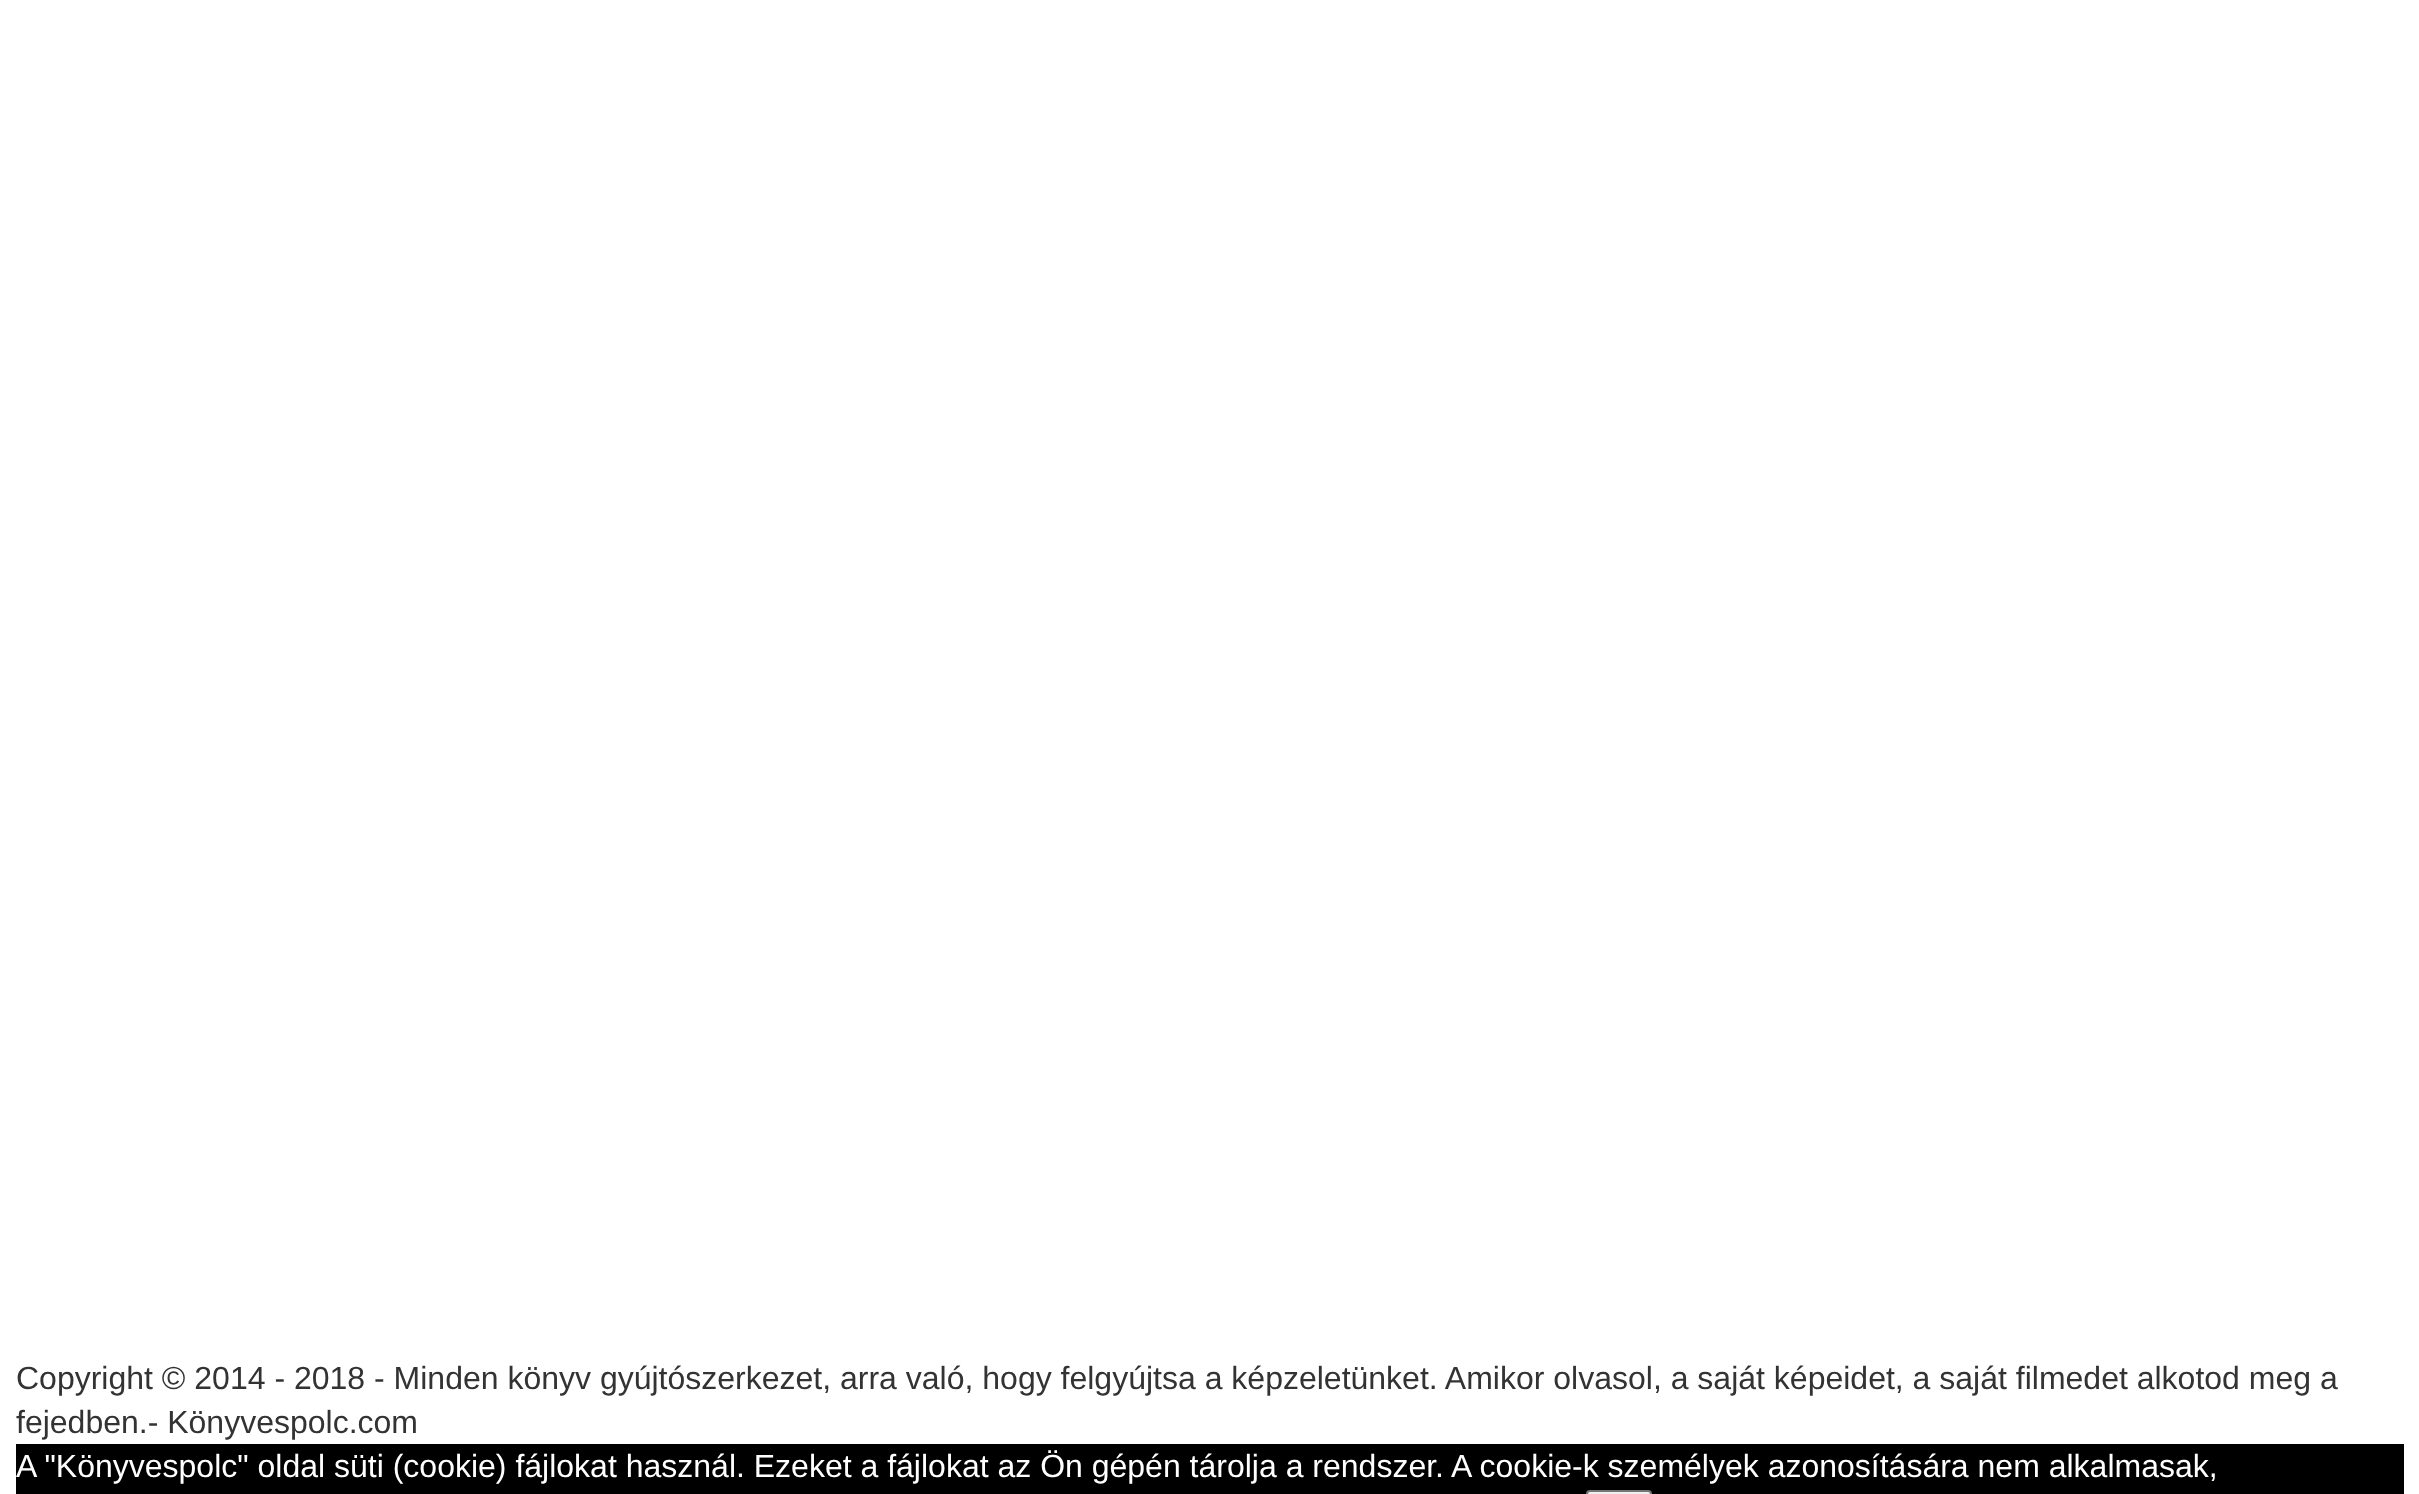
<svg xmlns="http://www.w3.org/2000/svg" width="2419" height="1494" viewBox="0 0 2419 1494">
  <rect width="100%" height="100%" fill="rgb(255,255,255)"/>
  <g font-family="Liberation Sans" font-size="32" fill="rgb(51,51,51)">
    <text>
      <tspan x="16" y="1389">Copyright © 2014 - 2018 - Minden könyv gyújtószerkezet, arra való, hogy felgyújtsa a képzeletünket. Amikor olvasol, a saját képeidet, a saját filmedet alkotod meg a</tspan>
      <tspan x="16" y="1433">fejedben.- Könyvespolc.com</tspan>
    </text>
  </g>
  <rect x="16" y="1444" width="2388" height="50" fill="rgb(0,0,0)"/>
  <text x="16" y="1477" font-family="Liberation Sans" font-size="32" fill="rgb(255,255,255)">A "Könyvespolc" oldal süti (cookie) fájlokat használ. Ezeket a fájlokat az Ön gépén tárolja a rendszer. A cookie-k személyek azonosítására nem alkalmasak,</text>
  <rect x="1587" y="1491" width="64" height="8" rx="3" fill="rgb(239,239,239)" stroke="rgb(118,118,118)" stroke-width="2"/>
</svg>
